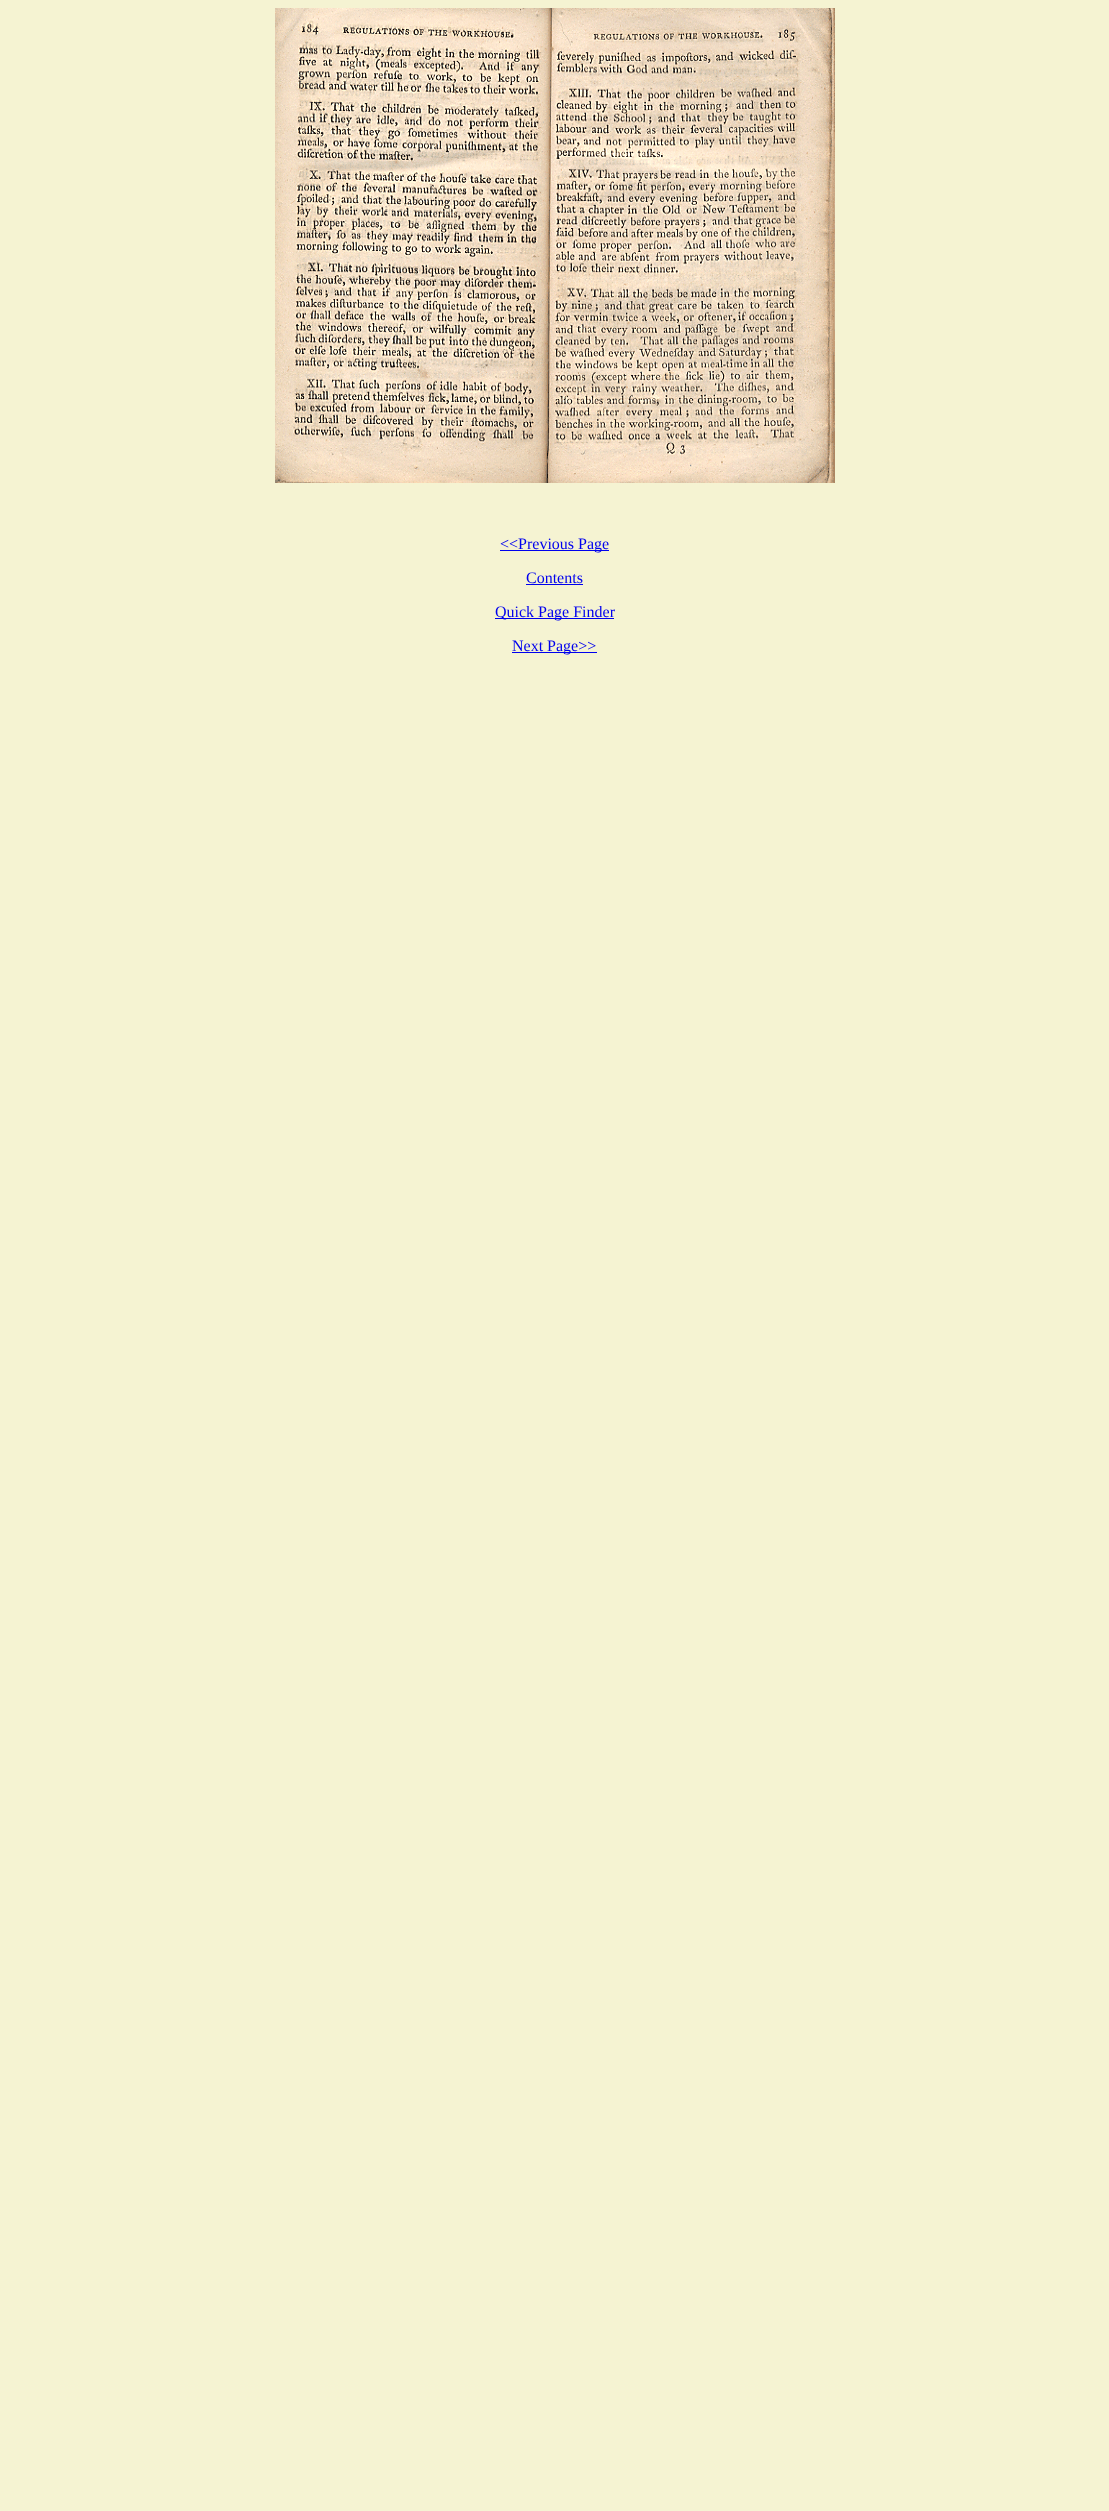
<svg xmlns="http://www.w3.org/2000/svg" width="1109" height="2511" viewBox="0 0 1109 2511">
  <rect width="100%" height="100%" fill="rgb(245,243,210)"/>
  <image x="275" y="8" width="560" height="475" href="pic1.png"/>
  <rect x="500" y="550" width="109" height="1" fill="rgb(0,0,238)"/>
  <g font-family="Liberation Serif" font-size="16" fill="rgb(0,0,238)">
    <text x="500" y="549">&lt;&lt;Previous Page</text>
    <text x="526" y="583">Contents</text>
  </g>
  <rect x="526" y="584" width="57" height="1" fill="rgb(0,0,238)"/>
  <rect x="495" y="618" width="119" height="1" fill="rgb(0,0,238)"/>
  <text x="495" y="617" font-family="Liberation Serif" font-size="16" fill="rgb(0,0,238)">Quick Page Finder</text>
  <rect x="512" y="652" width="85" height="1" fill="rgb(0,0,238)"/>
  <text x="512" y="651" font-family="Liberation Serif" font-size="16" fill="rgb(0,0,238)">Next Page&gt;&gt;</text>
</svg>
